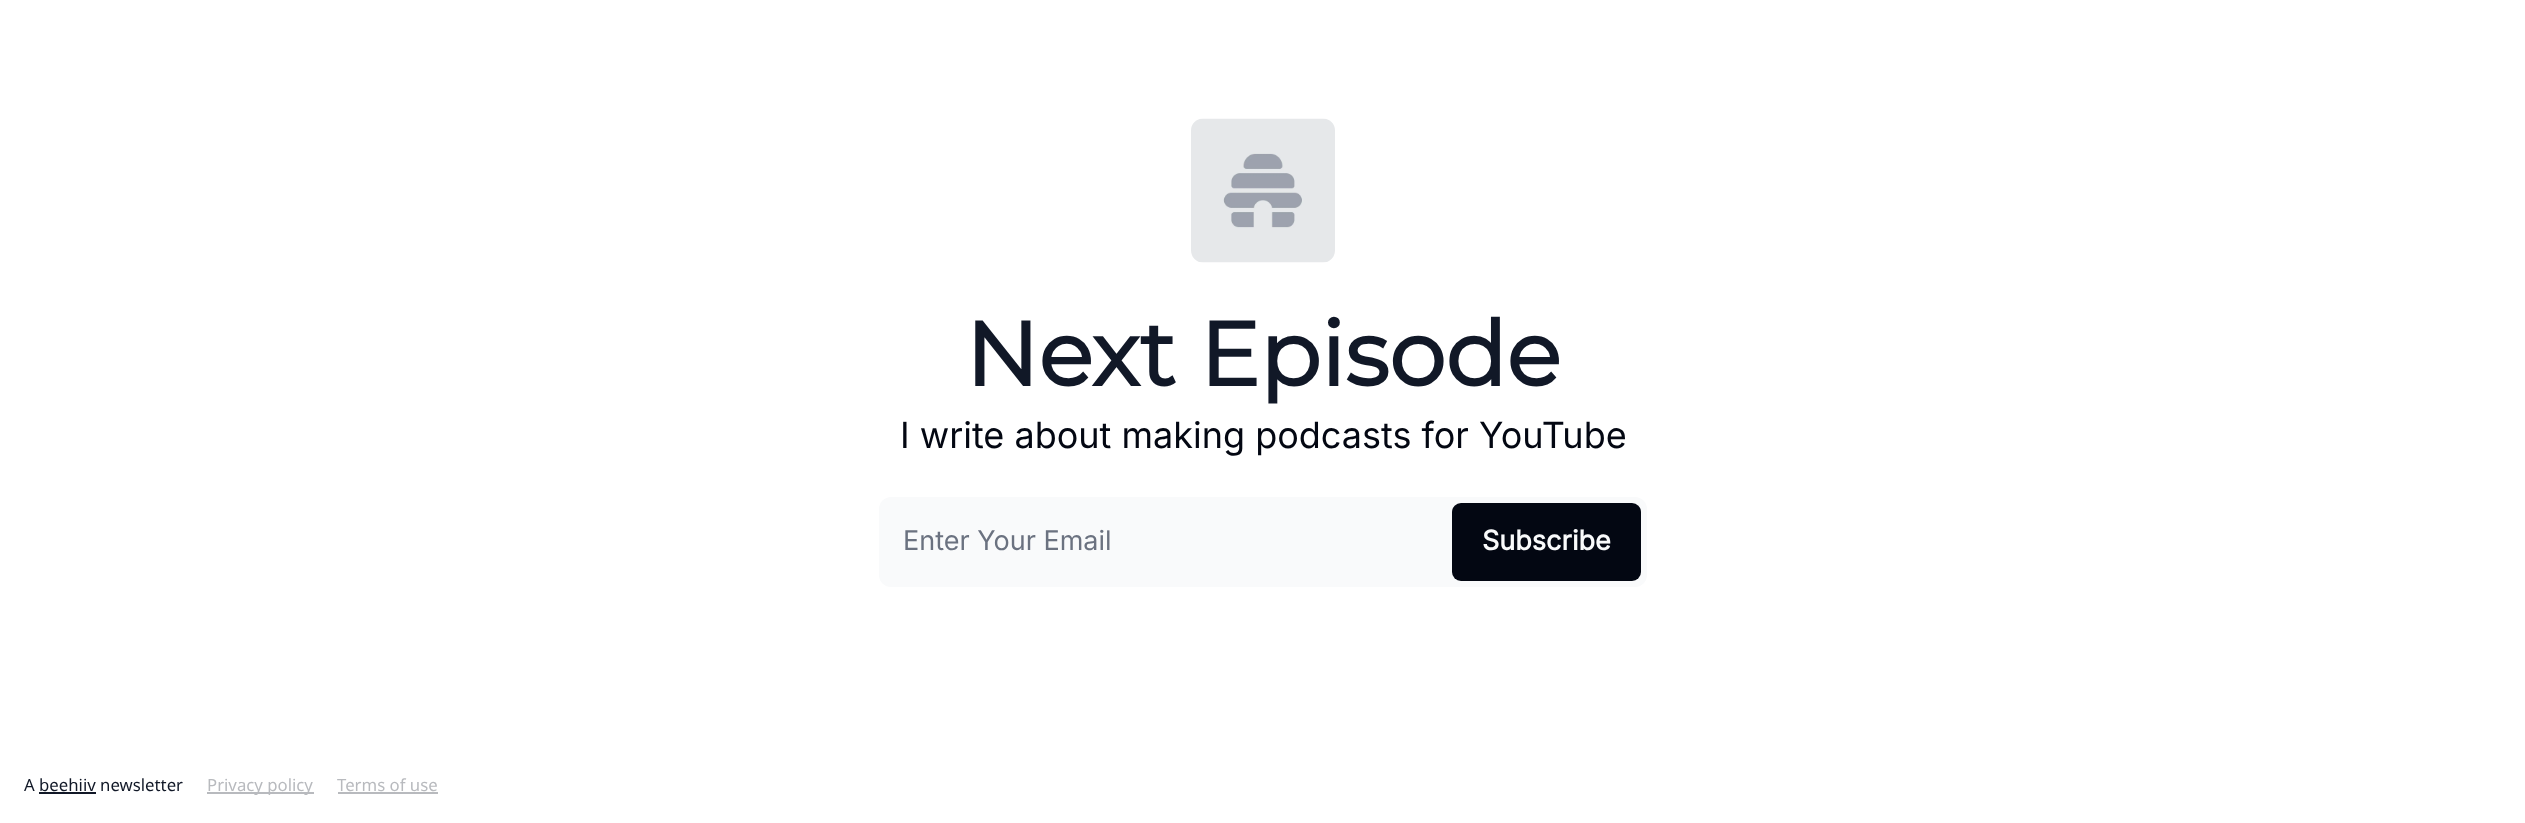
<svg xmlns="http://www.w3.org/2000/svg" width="2525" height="823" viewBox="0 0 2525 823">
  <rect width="100%" height="100%" fill="rgb(255,255,255)"/>
  <image x="1191" y="118" width="144" height="145" href="pic1.png"/>
  <text x="965" y="386" font-family="Montserrat" font-size="90" font-weight="bold" fill="rgb(17,24,39)">Next Episode</text>
  <text x="900" y="448" font-family="Inter" font-size="36" fill="rgb(3,7,18)">I write about making podcasts for YouTube</text>
  <rect x="879" y="497" width="768" height="90" rx="12" fill="rgb(249,250,251)"/>
  <text x="903" y="550" font-family="Inter" font-size="27" fill="rgb(107,114,128)">Enter Your Email</text>
  <rect x="1452" y="503" width="189" height="78" rx="9" fill="rgb(3,7,18)"/>
  <text x="1482" y="550" font-family="Inter" font-size="27" font-weight="bold" fill="rgb(249,250,251)">Subscribe</text>
  <text x="24" y="791" font-family="Noto Sans" font-size="16.75" fill="rgb(17,24,39)">A beehiiv newsletter</text>
  <rect x="39" y="792" width="57" height="2" fill="rgb(17,24,39)"/>
  <rect x="207" y="792" width="107" height="2" fill="rgb(184,186,190)"/>
  <g font-family="Noto Sans" font-size="16.75" fill="rgb(184,186,190)">
    <text x="207" y="791">Privacy policy</text>
    <text x="337" y="791">Terms of use</text>
  </g>
  <rect x="338" y="792" width="100" height="2" fill="rgb(184,186,190)"/>
</svg>
